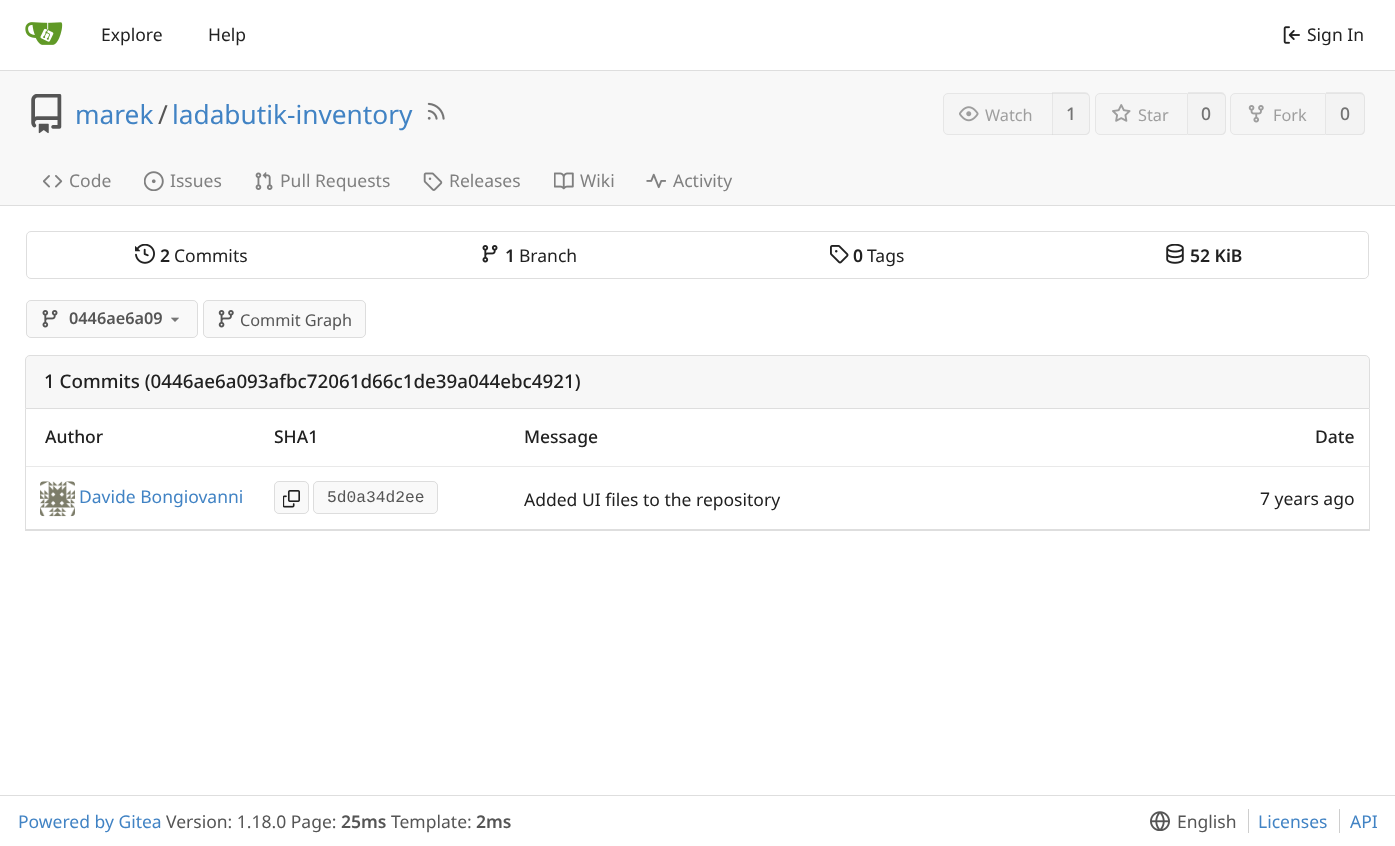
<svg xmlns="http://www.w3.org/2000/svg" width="1395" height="846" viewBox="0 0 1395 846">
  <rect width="100%" height="100%" fill="rgb(255,255,255)"/>
  <rect x="0" y="70" width="1395" height="1" fill="rgb(222,222,222)"/>
  <image x="25" y="22" width="38" height="23" href="pic1.png"/>
  <g font-family="Noto Sans" font-size="17.5" fill="rgb(33,33,33)">
    <text x="101" y="41">Explore</text>
    <text x="208" y="41">Help</text>
  </g>
  <image x="1283" y="26" width="17" height="18" href="pic2.png"/>
  <text x="1307" y="41" font-family="Noto Sans" font-size="17.5" fill="rgb(33,33,33)">Sign In</text>
  <rect x="0" y="71" width="1395" height="134" fill="rgb(248,248,248)"/>
  <image x="31" y="94" width="31" height="40" href="pic3.png"/>
  <text x="75" y="124" font-family="Noto Sans" font-size="26.25" fill="rgb(65,131,196)">marek</text>
  <text x="158" y="124" font-family="Noto Sans" font-size="26.25" fill="rgb(85,85,85)">/</text>
  <text x="172" y="124" font-family="Noto Sans" font-size="26.25" fill="rgb(65,131,196)">ladabutik-inventory</text>
  <image x="427" y="102" width="18" height="18" href="pic4.png"/>
  <path d="M948 93.5H1052.5V134.5H948C945.5 134.5 943.5 132.5 943.5 130V98C943.5 95.5 945.5 93.5 948 93.5Z" fill="rgb(245,245,245)" stroke="rgb(230,230,230)"/>
  <image x="959" y="106" width="20" height="16" href="pic5.png"/>
  <text x="985" y="121" font-family="Noto Sans" font-size="16.25" fill="rgb(158,158,158)">Watch</text>
  <path d="M1053 93H1085C1088 93 1090 95 1090 98V130C1090 133 1088 135 1085 135H1053Z" fill="rgb(243,243,243)"/>
  <path d="M1052 92H1085C1088 92 1090 95 1090 98V130C1090 133 1088 135 1085 135H1052ZM1052 94H1085C1087 94 1089 95 1089 98V130C1089 132 1087 134 1085 134H1052Z" fill="rgba(0,0,0,0.06)" fill-rule="evenodd"/>
  <text x="1066" y="120" font-family="Noto Sans" font-size="17.5" font-weight="500" fill="rgb(116,116,116)">1</text>
  <path d="M1100 93.5H1187.5V134.5H1100C1097.5 134.5 1095.5 132.5 1095.5 130V98C1095.5 95.5 1097.5 93.5 1100 93.5Z" fill="rgb(245,245,245)" stroke="rgb(230,230,230)"/>
  <image x="1112" y="104" width="19" height="18" href="pic6.png"/>
  <text x="1138" y="121" font-family="Noto Sans" font-size="16.25" fill="rgb(158,158,158)">Star</text>
  <path d="M1188 93H1221C1224 93 1226 95 1226 98V130C1226 133 1224 135 1221 135H1188Z" fill="rgb(243,243,243)"/>
  <path d="M1188 92H1221C1224 92 1226 95 1226 98V130C1226 133 1224 135 1221 135H1188ZM1188 94H1221C1223 94 1225 95 1225 98V130C1225 132 1223 134 1221 134H1188Z" fill="rgba(112,112,112,0.11)" fill-rule="evenodd"/>
  <text x="1201" y="120" font-family="Noto Sans" font-size="17.5" font-weight="500" fill="rgb(116,116,116)">0</text>
  <path d="M1235 93.5H1325.5V134.5H1235C1232.5 134.5 1230.5 132.5 1230.5 130V98C1230.5 95.5 1232.5 93.5 1235 93.5Z" fill="rgb(245,245,245)" stroke="rgb(230,230,230)"/>
  <image x="1248" y="105" width="16" height="18" href="pic7.png"/>
  <text x="1273" y="121" font-family="Noto Sans" font-size="16.25" fill="rgb(158,158,158)">Fork</text>
  <path d="M1326 93H1360C1363 93 1365 95 1365 98V130C1365 133 1363 135 1360 135H1326Z" fill="rgb(243,243,243)"/>
  <path d="M1326 92H1360C1363 92 1365 95 1365 98V130C1365 133 1363 135 1360 135H1326ZM1326 94H1360C1362 94 1364 95 1364 98V130C1364 132 1362 134 1360 134H1326Z" fill="rgba(112,112,112,0.11)" fill-rule="evenodd"/>
  <text x="1340" y="120" font-family="Noto Sans" font-size="17.5" font-weight="500" fill="rgb(116,116,116)">0</text>
  <image x="43" y="175" width="20" height="13" href="pic8.png"/>
  <text x="69" y="187" font-family="Noto Sans" font-size="17.5" fill="rgb(128,128,128)">Code</text>
  <image x="144" y="171" width="20" height="20" href="pic9.png"/>
  <text x="170" y="187" font-family="Noto Sans" font-size="17.5" fill="rgb(128,128,128)">Issues</text>
  <image x="255" y="172" width="18" height="18" href="pic10.png"/>
  <text x="280" y="187" font-family="Noto Sans" font-size="17.5" fill="rgb(128,128,128)">Pull Requests</text>
  <image x="423" y="172" width="20" height="19" href="pic11.png"/>
  <text x="449" y="187" font-family="Noto Sans" font-size="17.5" fill="rgb(128,128,128)">Releases</text>
  <image x="554" y="172" width="20" height="18" href="pic12.png"/>
  <text x="580" y="187" font-family="Noto Sans" font-size="17.5" fill="rgb(128,128,128)">Wiki</text>
  <image x="646" y="173" width="20" height="16" href="pic13.png"/>
  <text x="673" y="187" font-family="Noto Sans" font-size="17.5" fill="rgb(128,128,128)">Activity</text>
  <rect x="0" y="205" width="1395" height="1" fill="rgb(222,222,222)"/>
  <rect x="26.5" y="231.5" width="1342" height="47" rx="4.5" fill="none" stroke="rgb(222,222,222)"/>
  <rect x="28" y="233" width="1340" height="45" rx="5" fill="rgb(255,255,255)"/>
  <image x="135" y="244" width="20" height="20" href="pic14.png"/>
  <text x="160" y="262" font-family="Noto Sans" font-size="17.5" font-weight="600" fill="rgb(33,33,33)">2</text>
  <text x="174" y="262" font-family="Noto Sans" font-size="17.5" fill="rgb(33,33,33)">Commits</text>
  <image x="482" y="245" width="16" height="18" href="pic15.png"/>
  <text x="505" y="262" font-family="Noto Sans" font-size="17.5" font-weight="600" fill="rgb(33,33,33)">1</text>
  <text x="519" y="262" font-family="Noto Sans" font-size="17.5" fill="rgb(33,33,33)">Branch</text>
  <image x="830" y="245" width="19" height="19" href="pic16.png"/>
  <text x="853" y="262" font-family="Noto Sans" font-size="17.5" font-weight="600" fill="rgb(33,33,33)">0</text>
  <text x="867" y="262" font-family="Noto Sans" font-size="17.5" fill="rgb(33,33,33)">Tags</text>
  <image x="1166" y="244" width="18" height="20" href="pic17.png"/>
  <text x="1190" y="262" font-family="Noto Sans" font-size="17.5" font-weight="600" fill="rgb(33,33,33)">52 KiB</text>
  <rect x="26" y="300" width="172" height="38" rx="5" fill="rgb(249,249,249)"/>
  <rect x="26.5" y="300.5" width="171" height="37" rx="4.5" fill="none" stroke="rgba(0,0,0,0.11)"/>
  <image x="42" y="310" width="16" height="18" href="pic18.png"/>
  <text x="69" y="324" font-family="Noto Sans" font-size="16.25" font-weight="600" fill="rgb(85,85,85)">0446ae6a09</text>
  <image x="171" y="317" width="8" height="5" href="pic19.png"/>
  <rect x="203" y="300" width="163" height="38" rx="5" fill="rgb(249,249,249)"/>
  <rect x="203.5" y="300.5" width="162" height="37" rx="4.5" fill="none" stroke="rgba(0,0,0,0.11)"/>
  <image x="218" y="310" width="16" height="18" href="pic20.png"/>
  <text x="240" y="326" font-family="Noto Sans" font-size="16.25" fill="rgb(85,85,85)">Commit Graph</text>
  <path d="M30 355.5H1365C1367.5 355.5 1369.5 357.5 1369.5 360V408.5H25.5V360C25.5 357.5 27.5 355.5 30 355.5Z" fill="rgb(247,247,247)" stroke="rgb(222,222,222)"/>
  <text x="44" y="388" font-family="Noto Sans" font-size="18.75" font-weight="500" fill="rgb(33,33,33)">1 Commits (0446ae6a093afbc72061d66c1de39a044ebc4921)</text>
  <rect x="1369" y="409" width="1" height="122" fill="rgb(222,222,222)"/>
  <rect x="25" y="530" width="1345" height="1" fill="rgb(222,222,222)"/>
  <rect x="25" y="409" width="1" height="122" fill="rgb(222,222,222)"/>
  <rect x="26" y="466" width="1343" height="1" fill="rgb(233,233,233)"/>
  <g font-family="Noto Sans" font-size="17.5" font-weight="500" fill="rgb(33,33,33)">
    <text x="45" y="443">Author</text>
    <text x="274" y="443">SHA1</text>
    <text x="524" y="443">Message</text>
    <text x="1315" y="443">Date</text>
  </g>
  <rect x="26" y="529" width="1343" height="1" fill="rgb(222,222,222)"/>
  <image x="40" y="481" width="35" height="36" href="pic21.png"/>
  <text x="79" y="503" font-family="Noto Sans" font-size="17.5" fill="rgb(65,131,196)">Davide Bongiovanni</text>
  <rect x="274" y="481" width="35" height="33" rx="5" fill="rgb(249,249,249)"/>
  <rect x="274.5" y="481.5" width="34" height="32" rx="4.5" fill="none" stroke="rgba(0,0,0,0.11)"/>
  <image x="283" y="490" width="17" height="18" href="pic22.png"/>
  <rect x="313" y="481" width="125" height="33" rx="5" fill="rgb(249,249,249)"/>
  <rect x="313.5" y="481.5" width="124" height="32" rx="4.5" fill="none" stroke="rgba(0,0,0,0.11)"/>
  <text x="327" y="502" font-family="Liberation Mono" font-size="16.25" fill="rgb(85,85,85)">5d0a34d2ee</text>
  <g font-family="Noto Sans" font-size="17.5" fill="rgb(33,33,33)">
    <text x="524" y="506">Added UI files to the repository</text>
    <text x="1260" y="505">7 years ago</text>
  </g>
  <rect x="0" y="795" width="1395" height="1" fill="rgb(222,222,222)"/>
  <text x="18" y="828" font-family="Noto Sans" font-size="17.5" fill="rgb(65,131,196)">Powered by Gitea</text>
  <text x="166" y="828" font-family="Noto Sans" font-size="17.5" fill="rgb(85,85,85)">Version: 1.18.0 Page:</text>
  <text x="341" y="828" font-family="Noto Sans" font-size="17.5" font-weight="600" fill="rgb(85,85,85)">25ms</text>
  <text x="391" y="828" font-family="Noto Sans" font-size="17.5" fill="rgb(85,85,85)">Template:</text>
  <text x="476" y="828" font-family="Noto Sans" font-size="17.5" font-weight="600" fill="rgb(85,85,85)">2ms</text>
  <image x="1150" y="811" width="20" height="20" href="pic23.png"/>
  <text x="1177" y="828" font-family="Noto Sans" font-size="17.5" fill="rgb(85,85,85)">English</text>
  <text x="1258" y="828" font-family="Noto Sans" font-size="17.5" fill="rgb(65,131,196)">Licenses</text>
  <rect x="1248" y="809" width="1" height="24" fill="rgb(206,206,206)"/>
  <text x="1350" y="828" font-family="Noto Sans" font-size="17.5" fill="rgb(65,131,196)">API</text>
  <rect x="1339" y="809" width="1" height="24" fill="rgb(206,206,206)"/>
</svg>
